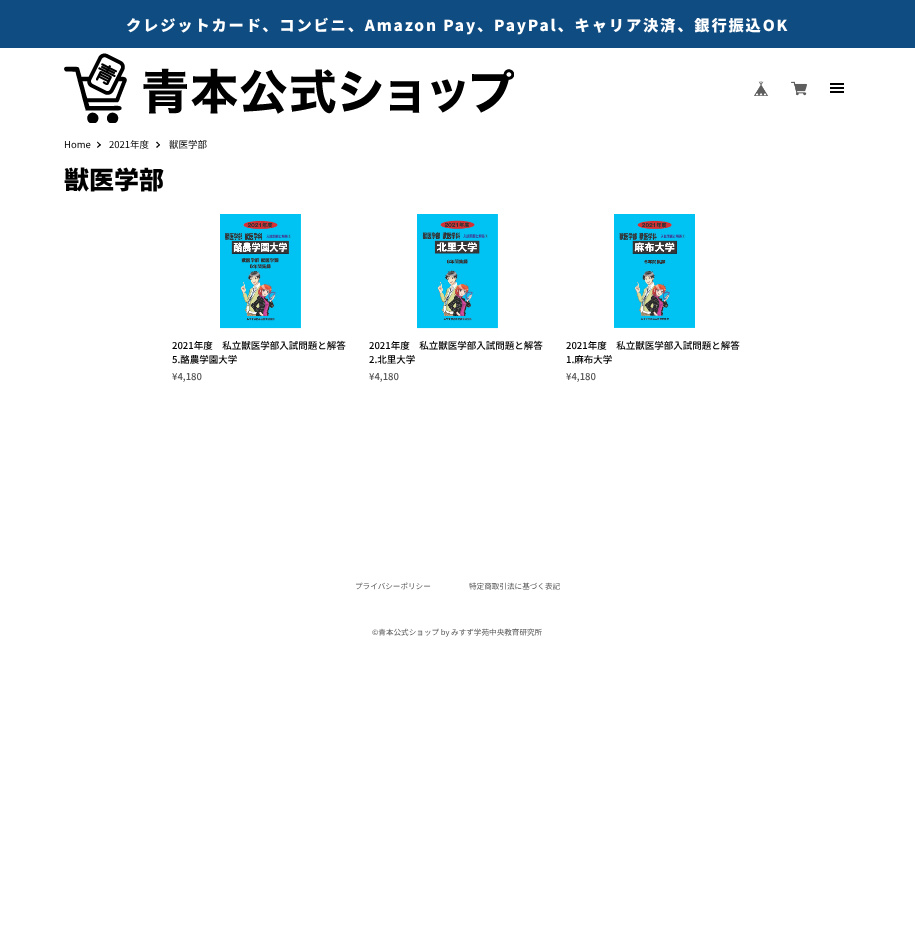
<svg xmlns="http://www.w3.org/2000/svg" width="915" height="946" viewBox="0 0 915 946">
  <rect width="100%" height="100%" fill="rgb(255,255,255)"/>
  <rect x="0" y="0" width="915" height="48" fill="rgb(15,76,129)"/>
  <text x="126" y="31" font-family="Noto Sans JP" font-size="15.25" font-weight="900" letter-spacing="1.85" fill="rgb(255,255,255)">クレジットカード、コンビニ、Amazon Pay、PayPal、キャリア決済、銀行振込OK</text>
  <image x="64" y="53" width="450" height="70" href="pic1.png"/>
  <image x="754" y="81" width="15" height="15" href="pic2.png"/>
  <image x="791" y="81" width="16" height="15" href="pic3.png"/>
  <rect x="830" y="83" width="14" height="2" fill="rgb(0,0,0)"/>
  <rect x="830" y="87" width="14" height="2" fill="rgb(0,0,0)"/>
  <rect x="830" y="91" width="14" height="2" fill="rgb(0,0,0)"/>
  <text x="64" y="148" font-family="Noto Sans JP" font-size="9.5" fill="rgb(0,0,0)">Home</text>
  <path d="M97.5 141.5L101 145L100 145.5L97 142.5Z" fill="rgb(0,0,0)"/>
  <path d="M100 144L101 145L97.5 148L97 147Z" fill="rgb(0,0,0)"/>
  <text x="109" y="148" font-family="Noto Sans JP" font-size="9.5" fill="rgb(0,0,0)">2021年度</text>
  <path d="M157 141.5L160 145L159.5 145.5L156 142.5Z" fill="rgb(0,0,0)"/>
  <path d="M159.5 144L160 145L157 148L156 147Z" fill="rgb(0,0,0)"/>
  <text x="169" y="148" font-family="Noto Sans JP" font-size="9.5" fill="rgb(0,0,0)">獣医学部</text>
  <text x="64" y="189" font-family="Noto Sans JP" font-size="25" font-weight="900" fill="rgb(0,0,0)">獣医学部</text>
  <image x="220" y="214" width="81" height="115" href="pic4.png"/>
  <g font-family="Noto Sans JP" font-size="9.5" font-weight="500" fill="rgb(0,0,0)">
    <text>
      <tspan x="172" y="349">2021年度　私立獣医学部入試問題と解答</tspan>
      <tspan x="172" y="363">5.酪農学園大学</tspan>
    </text>
  </g>
  <text x="172" y="380" font-family="Noto Sans JP" font-size="9.5" font-weight="500" fill="rgb(85,85,85)">¥4,180</text>
  <image x="417" y="214" width="81" height="115" href="pic5.png"/>
  <g font-family="Noto Sans JP" font-size="9.5" font-weight="500" fill="rgb(0,0,0)">
    <text>
      <tspan x="369" y="349">2021年度　私立獣医学部入試問題と解答</tspan>
      <tspan x="369" y="363">2.北里大学</tspan>
    </text>
  </g>
  <text x="369" y="380" font-family="Noto Sans JP" font-size="9.5" font-weight="500" fill="rgb(85,85,85)">¥4,180</text>
  <image x="614" y="214" width="81" height="114" href="pic6.png"/>
  <g font-family="Noto Sans JP" font-size="9.5" font-weight="500" fill="rgb(0,0,0)">
    <text>
      <tspan x="566" y="349">2021年度　私立獣医学部入試問題と解答</tspan>
      <tspan x="566" y="363">1.麻布大学</tspan>
    </text>
  </g>
  <text x="566" y="380" font-family="Noto Sans JP" font-size="9.5" font-weight="500" fill="rgb(85,85,85)">¥4,180</text>
  <g font-family="Noto Sans JP" font-size="7.6" fill="rgb(85,85,85)">
    <text x="355" y="589">プライバシーポリシー</text>
    <text x="469" y="589">特定商取引法に基づく表記</text>
    <text x="372" y="635">©︎青本公式ショップ by みすず学苑中央教育研究所</text>
  </g>
</svg>
